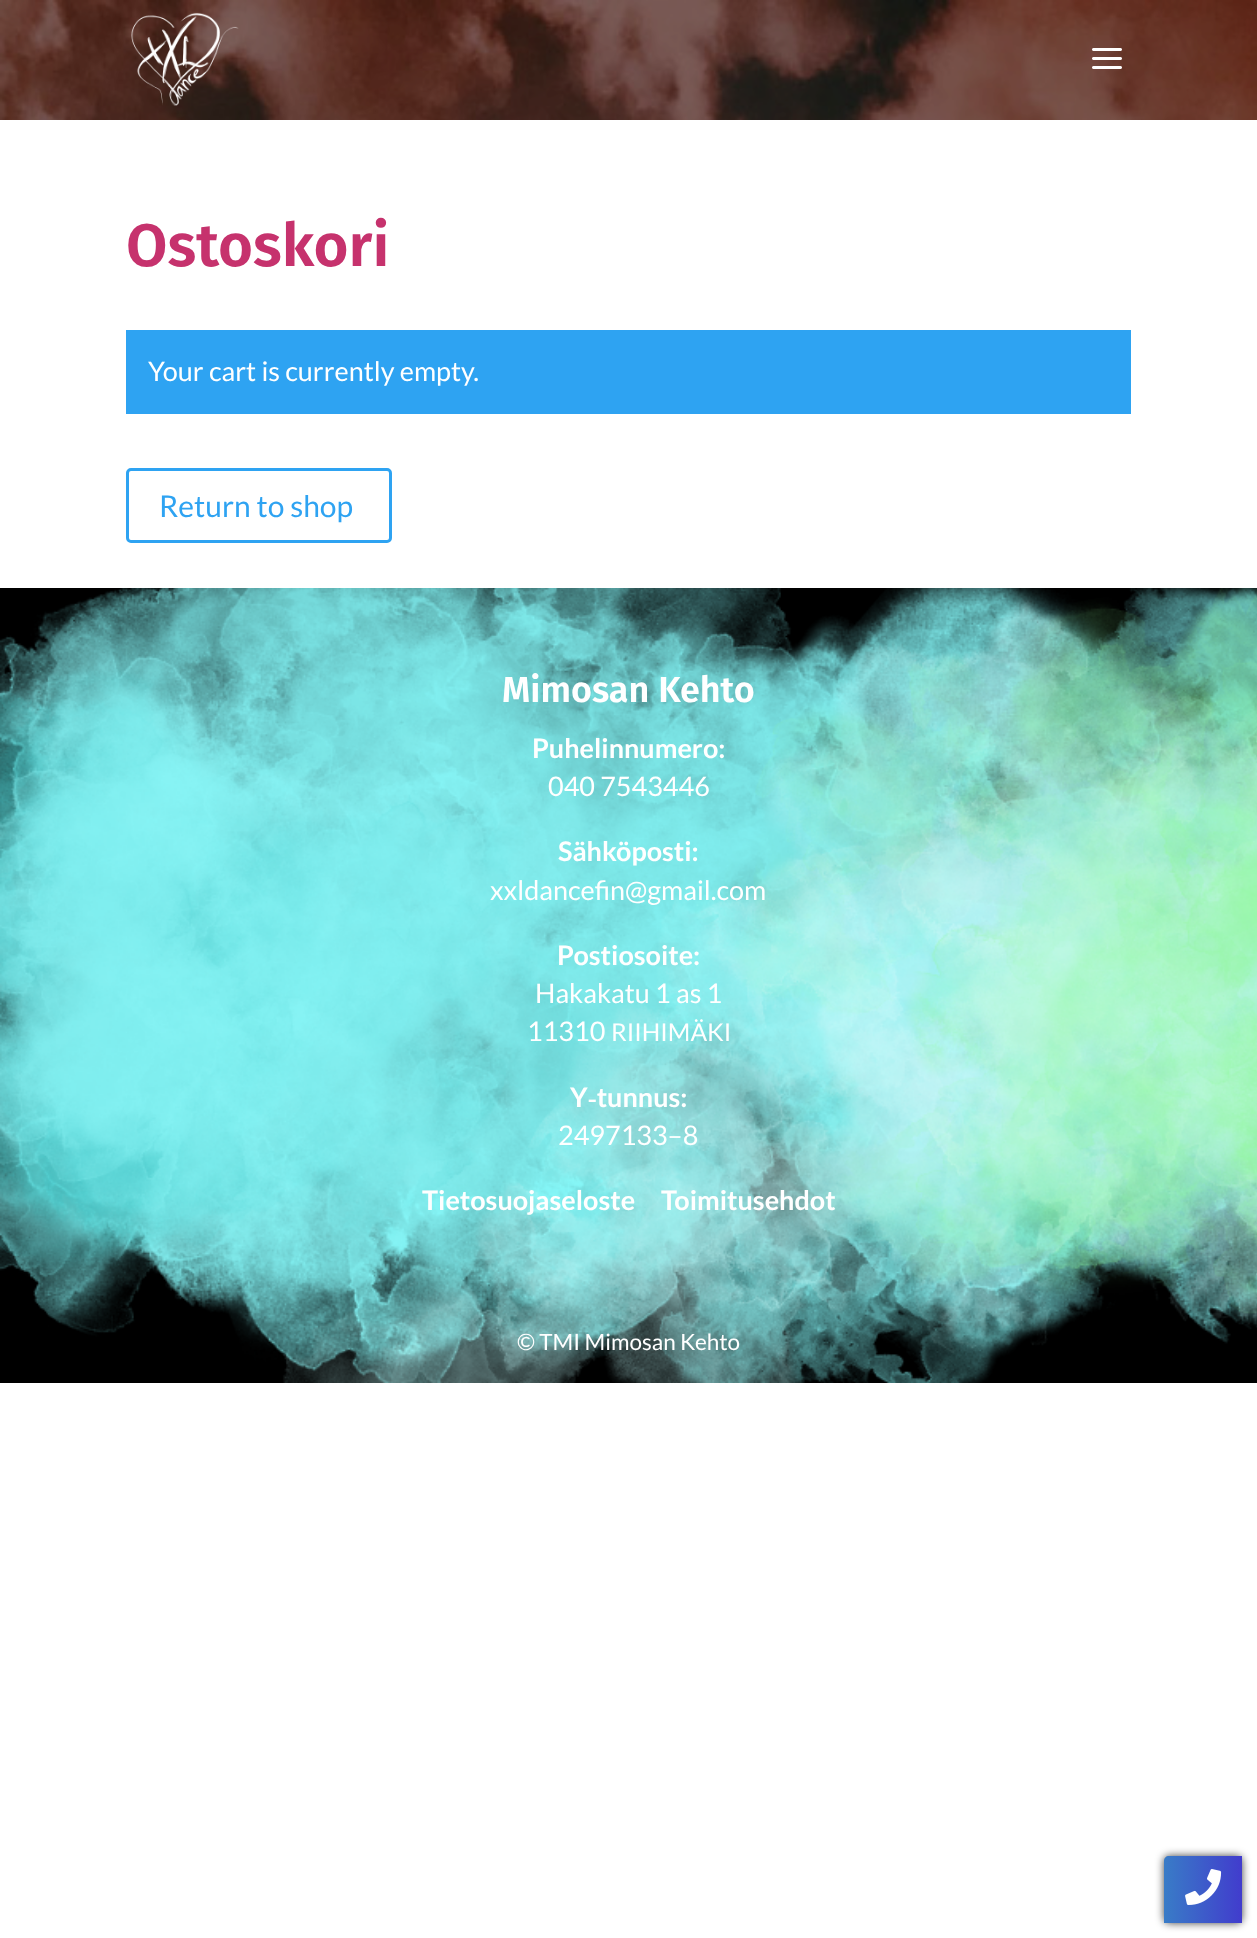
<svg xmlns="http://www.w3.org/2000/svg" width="1257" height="1938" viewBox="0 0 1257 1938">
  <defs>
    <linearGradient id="g1" gradientUnits="userSpaceOnUse" x1="1164" y1="1889" x2="1242" y2="1889"><stop offset="0" stop-color="rgb(57,124,199)"/><stop offset="1" stop-color="rgb(65,60,205)"/></linearGradient>
  </defs>
  <rect width="100%" height="100%" fill="rgb(255,255,255)"/>
  <image x="0" y="0" width="1257" height="120" href="pic1.png"/>
  <image x="131" y="12" width="108" height="94" href="pic2.png"/>
  <image x="1092" y="48" width="30" height="21" href="pic3.png"/>
  <text x="126" y="266" font-family="Fira Sans" font-size="60" font-weight="600" fill="rgb(198,50,109)">Ostoskori</text>
  <rect x="126" y="330" width="1005" height="84" fill="rgb(46,163,242)"/>
  <text x="148" y="381" font-family="Lato" font-size="27" fill="rgb(255,255,255)">Your cart is currently empty.</text>
  <rect x="127.5" y="469.5" width="263" height="72" rx="3.5" fill="none" stroke="rgb(46,163,242)" stroke-width="3"/>
  <text x="159" y="517" font-family="Lato" font-size="30" fill="rgb(46,163,242)">Return to shop</text>
  <image x="0" y="588" width="1257" height="795" href="pic4.png"/>
  <text x="502" y="702" font-family="Fira Sans" font-size="36" font-weight="600" fill="rgb(255,255,255)">Mimosan Kehto</text>
  <text x="532" y="758" font-family="Lato" font-size="27" font-weight="bold" fill="rgb(255,255,255)">Puhelinnumero:</text>
  <text x="548" y="796" font-family="Lato" font-size="27" fill="rgb(255,255,255)">040 7543446</text>
  <text x="558" y="861" font-family="Lato" font-size="27" font-weight="bold" fill="rgb(255,255,255)">Sähköposti:</text>
  <text x="490" y="900" font-family="Lato" font-size="27" fill="rgb(255,255,255)">xxldancefin@gmail.com</text>
  <text x="557" y="965" font-family="Lato" font-size="27" font-weight="bold" fill="rgb(255,255,255)">Postiosoite:</text>
  <g font-family="Lato" font-size="27" fill="rgb(255,255,255)">
    <text x="535" y="1003">Hakakatu 1 as 1</text>
    <text x="527" y="1041">11310</text>
  </g>
  <text x="611" y="1041" font-family="Lato" font-size="24.5" fill="rgb(255,255,255)">RIIHIMÄKI</text>
  <text x="570" y="1107" font-family="Lato" font-size="27" font-weight="bold" fill="rgb(255,255,255)">Y‑tunnus:</text>
  <text x="558" y="1145" font-family="Lato" font-size="27" fill="rgb(255,255,255)">2497133–8</text>
  <g font-family="Lato" font-size="27" font-weight="bold" fill="rgb(255,255,255)">
    <text x="422" y="1210">Tietosuojaseloste</text>
    <text x="661" y="1210">Toimitusehdot</text>
  </g>
  <text x="517" y="1350" font-family="Lato" font-size="22.5" fill="rgb(255,255,255)">© TMI Mimosan Kehto</text>
  <rect x="1164" y="1856" width="78" height="67" rx="5" fill="rgba(0,0,0,0.75)" filter="blur(4px)"/>
  <path d="M1169 1856H1242V1923H1164V1861C1164 1858 1166 1856 1169 1856Z" fill="url(#g1)"/>
  <image x="1185" y="1869" width="37" height="36" href="pic5.png"/>
</svg>
